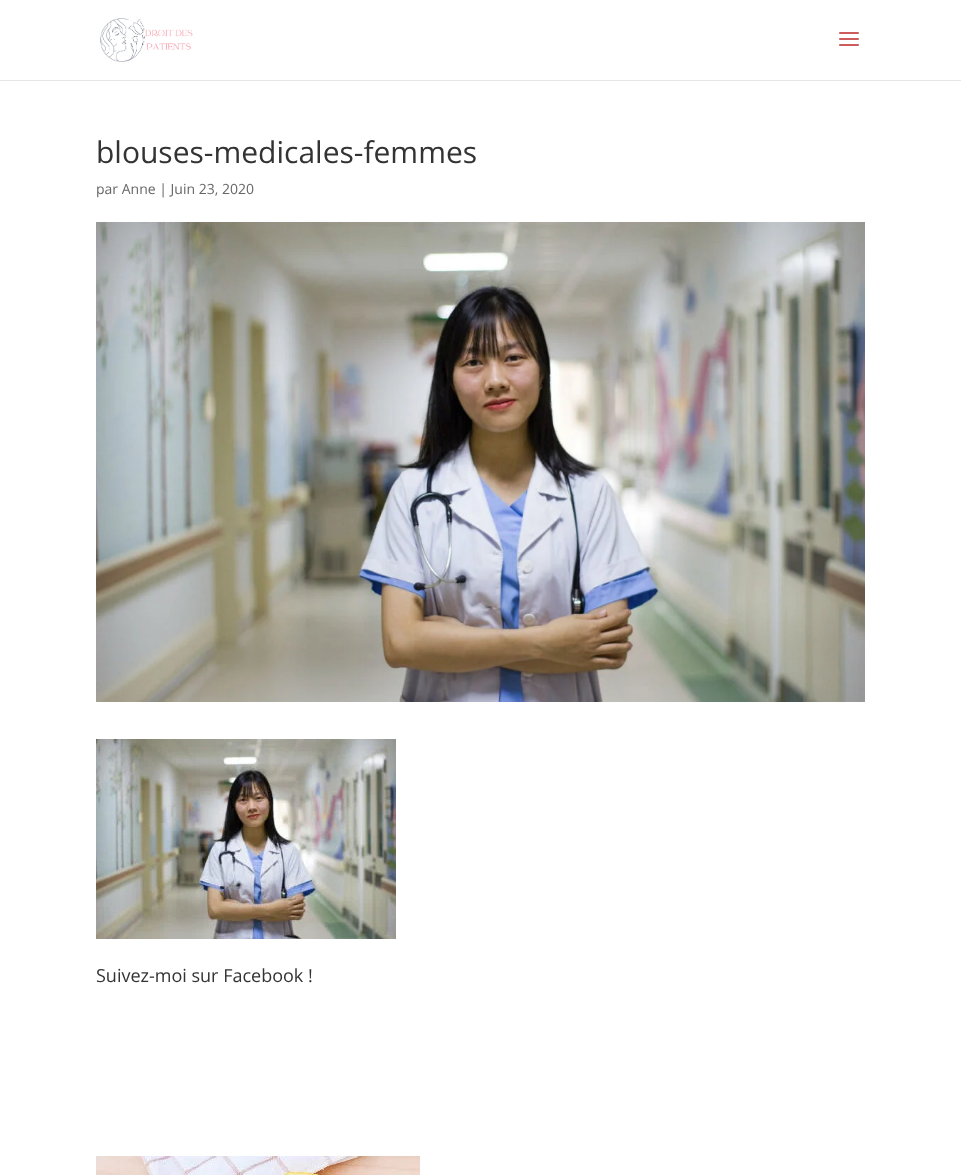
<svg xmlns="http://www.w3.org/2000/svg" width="961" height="1175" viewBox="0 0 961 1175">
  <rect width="100%" height="100%" fill="rgb(255,255,255)"/>
  <rect x="0" y="80" width="961" height="1" fill="rgb(230,230,230)"/>
  <image x="100" y="18" width="93" height="44" href="pic1.png"/>
  <image x="839" y="32" width="20" height="14" href="pic2.png"/>
  <text x="96" y="163" font-family="Open Sans" font-size="30" fill="rgb(51,51,51)">blouses-medicales-femmes</text>
  <text x="96" y="194" font-family="Open Sans" font-size="14" fill="rgb(102,102,102)">par Anne | Juin 23, 2020</text>
  <image x="96" y="222" width="769" height="480" href="pic3.png"/>
  <image x="96" y="739" width="300" height="200" href="pic4.png"/>
  <text x="96" y="982" font-family="Open Sans" font-size="18" fill="rgb(51,51,51)">Suivez-moi sur Facebook !</text>
  <image x="96" y="1156" width="324" height="19" href="pic5.png"/>
</svg>
